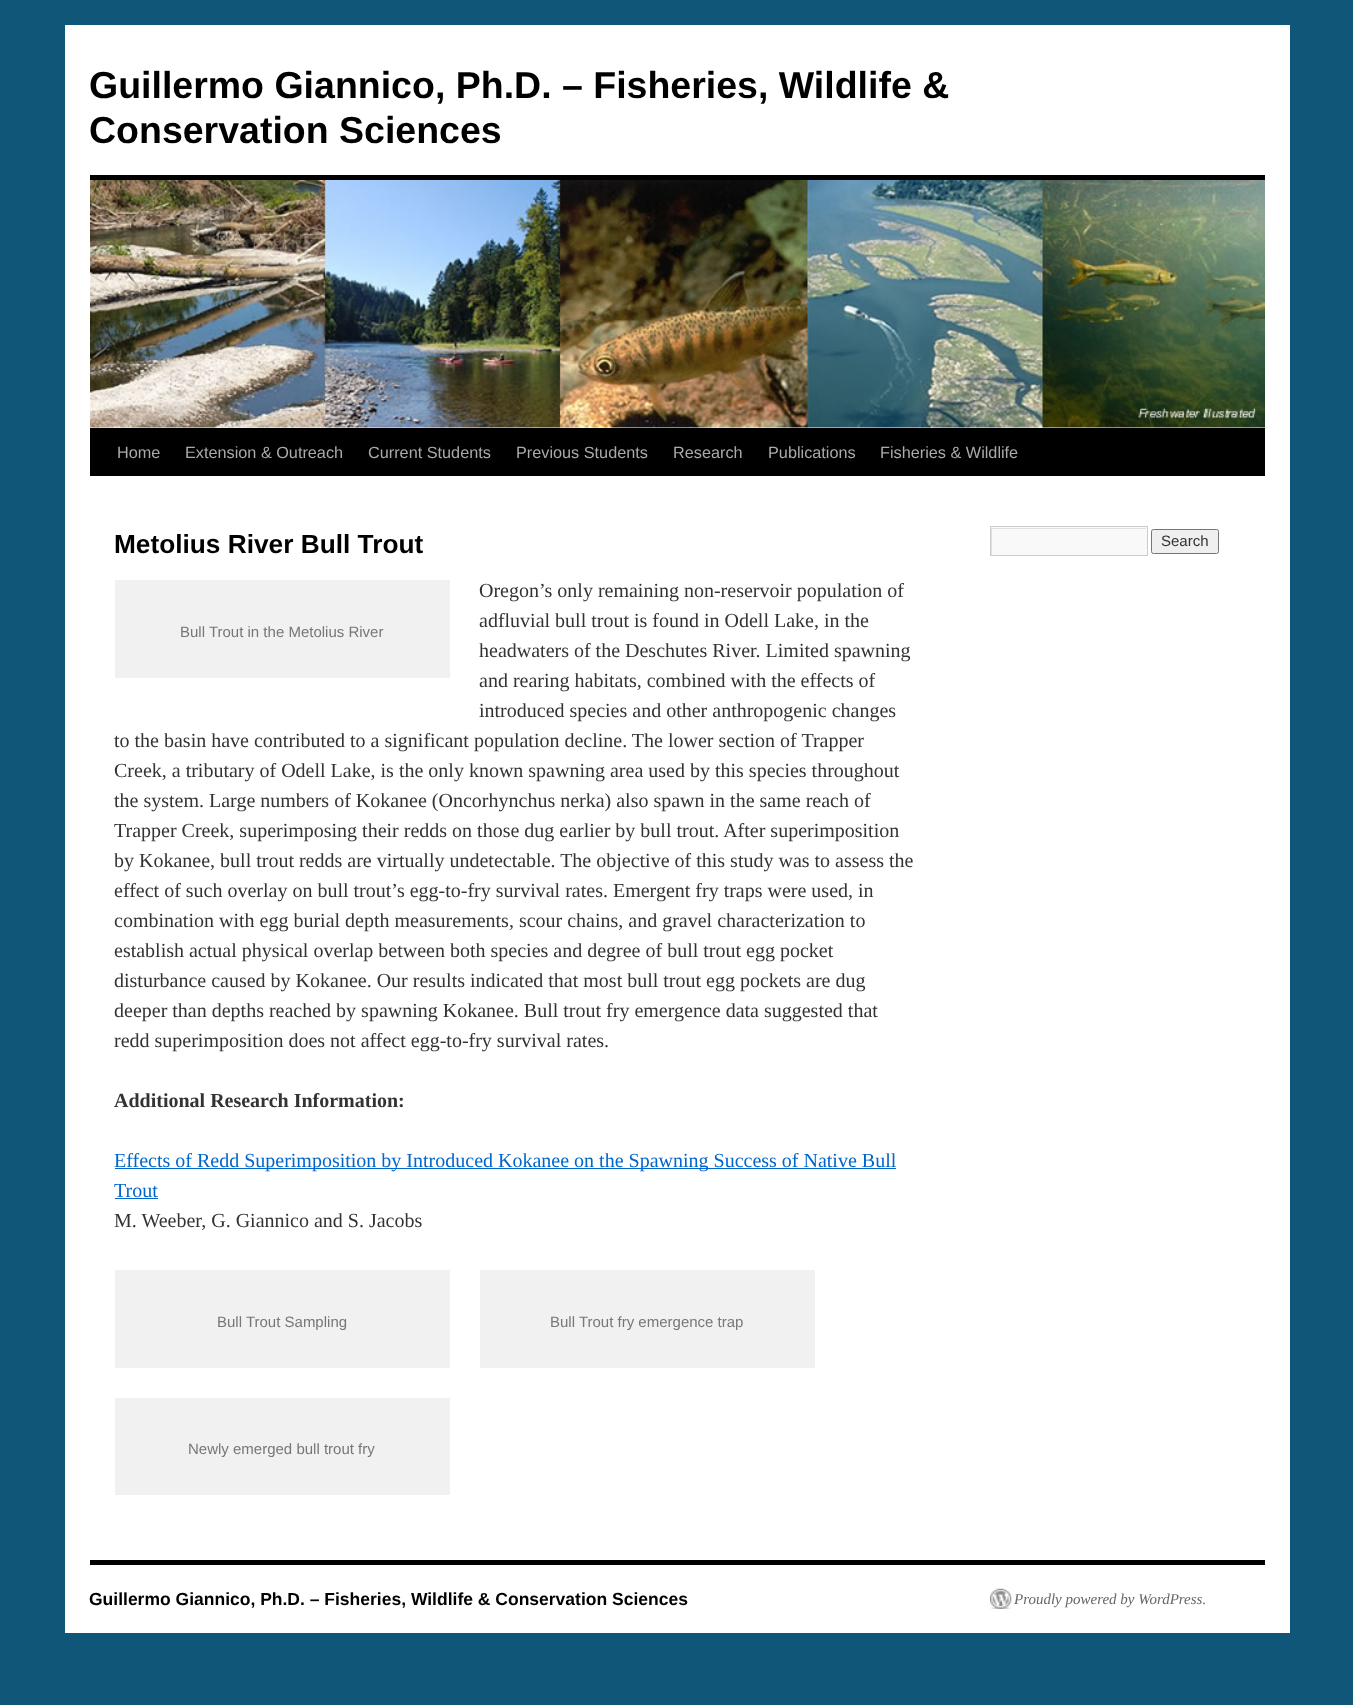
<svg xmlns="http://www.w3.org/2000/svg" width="1353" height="1705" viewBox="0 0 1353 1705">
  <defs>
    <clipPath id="clip1"><rect x="991" y="528" width="155" height="27"/></clipPath>
  </defs>
  <rect width="100%" height="100%" fill="rgb(16,86,121)"/>
  <rect x="65" y="25" width="1225" height="1608" fill="rgb(255,255,255)"/>
  <g font-family="Liberation Sans" font-size="37.5" font-weight="bold" fill="rgb(0,0,0)">
    <text>
      <tspan x="89" y="98">Guillermo Giannico, Ph.D. – Fisheries, Wildlife &amp;</tspan>
      <tspan x="89" y="143">Conservation Sciences</tspan>
    </text>
  </g>
  <rect x="90" y="175" width="1175" height="5" fill="rgb(0,0,0)"/>
  <rect x="90" y="428" width="1175" height="48" fill="rgb(0,0,0)"/>
  <image x="90" y="180" width="1175" height="248" href="pic1.png"/>
  <g font-family="Liberation Sans" font-size="16.25" fill="rgb(170,170,170)">
    <text x="117" y="458">Home</text>
    <text x="185" y="458">Extension &amp; Outreach</text>
    <text x="368" y="458">Current Students</text>
    <text x="516" y="458">Previous Students</text>
    <text x="673" y="458">Research</text>
    <text x="768" y="458">Publications</text>
    <text x="880" y="458">Fisheries &amp; Wildlife</text>
  </g>
  <text x="114" y="553" font-family="Liberation Sans" font-size="26.25" font-weight="bold" fill="rgb(0,0,0)">Metolius River Bull Trout</text>
  <g font-family="Liberation Serif" font-size="20" fill="rgb(51,51,51)">
    <text>
      <tspan x="479" y="597">Oregon’s only remaining non-reservoir population of</tspan>
      <tspan x="479" y="627">adfluvial bull trout is found in Odell Lake, in the</tspan>
      <tspan x="479" y="657">headwaters of the Deschutes River. Limited spawning</tspan>
      <tspan x="479" y="687">and rearing habitats, combined with the effects of</tspan>
      <tspan x="479" y="717">introduced species and other anthropogenic changes</tspan>
    </text>
    <text>
      <tspan x="114" y="747">to the basin have contributed to a significant population decline. The lower section of Trapper</tspan>
      <tspan x="114" y="777">Creek, a tributary of Odell Lake, is the only known spawning area used by this species throughout</tspan>
      <tspan x="114" y="807">the system. Large numbers of Kokanee (Oncorhynchus nerka) also spawn in the same reach of</tspan>
      <tspan x="114" y="837">Trapper Creek, superimposing their redds on those dug earlier by bull trout. After superimposition</tspan>
      <tspan x="114" y="867">by Kokanee, bull trout redds are virtually undetectable. The objective of this study was to assess the</tspan>
      <tspan x="114" y="897">effect of such overlay on bull trout’s egg-to-fry survival rates. Emergent fry traps were used, in</tspan>
      <tspan x="114" y="927">combination with egg burial depth measurements, scour chains, and gravel characterization to</tspan>
      <tspan x="114" y="957">establish actual physical overlap between both species and degree of bull trout egg pocket</tspan>
      <tspan x="114" y="987">disturbance caused by Kokanee. Our results indicated that most bull trout egg pockets are dug</tspan>
      <tspan x="114" y="1017">deeper than depths reached by spawning Kokanee. Bull trout fry emergence data suggested that</tspan>
      <tspan x="114" y="1047">redd superimposition does not affect egg-to-fry survival rates.</tspan>
    </text>
  </g>
  <rect x="115" y="580" width="335" height="98" fill="rgb(241,241,241)"/>
  <text x="180" y="637" font-family="Liberation Sans" font-size="15" fill="rgb(119,119,119)">Bull Trout in the Metolius River</text>
  <text x="114" y="1107" font-family="Liberation Serif" font-size="20" font-weight="bold" fill="rgb(51,51,51)">Additional Research Information:</text>
  <rect x="115" y="1168" width="781" height="1" fill="rgb(0,102,204)"/>
  <g font-family="Liberation Serif" font-size="20" fill="rgb(0,102,204)">
    <text>
      <tspan x="114" y="1167">Effects of Redd Superimposition by Introduced Kokanee on the Spawning Success of Native Bull</tspan>
      <tspan x="114" y="1197">Trout</tspan>
    </text>
  </g>
  <rect x="115" y="1198" width="43" height="1" fill="rgb(0,102,204)"/>
  <text x="114" y="1227" font-family="Liberation Serif" font-size="20" fill="rgb(51,51,51)">M. Weeber, G. Giannico and S. Jacobs</text>
  <rect x="115" y="1270" width="335" height="98" fill="rgb(241,241,241)"/>
  <text x="217" y="1327" font-family="Liberation Sans" font-size="15" fill="rgb(119,119,119)">Bull Trout Sampling</text>
  <rect x="480" y="1270" width="335" height="98" fill="rgb(241,241,241)"/>
  <text x="550" y="1327" font-family="Liberation Sans" font-size="15" fill="rgb(119,119,119)">Bull Trout fry emergence trap</text>
  <rect x="115" y="1398" width="335" height="97" fill="rgb(241,241,241)"/>
  <text x="188" y="1454" font-family="Liberation Sans" font-size="15" fill="rgb(119,119,119)">Newly emerged bull trout fry</text>
  <rect x="991" y="527" width="156" height="28" fill="rgb(249,249,249)"/>
  <g clip-path="url(#clip1)">
    <path d="M868 404H1270V679H868ZM992 529H1148V556H992Z" fill="rgb(224,224,224)" fill-rule="evenodd"/>
  </g>
  <rect x="990.5" y="526.5" width="157" height="29" fill="none" stroke="rgb(204,204,204)"/>
  <rect x="1151.5" y="529.5" width="67" height="24" rx="2" fill="rgb(239,239,239)" stroke="rgb(118,118,118)"/>
  <text x="1161" y="546" font-family="Liberation Sans" font-size="15" fill="rgb(51,51,51)">Search</text>
  <rect x="90" y="1560" width="1175" height="5" fill="rgb(0,0,0)"/>
  <text x="89" y="1605" font-family="Liberation Sans" font-size="17.5" font-weight="bold" fill="rgb(0,0,0)">Guillermo Giannico, Ph.D. – Fisheries, Wildlife &amp; Conservation Sciences</text>
  <image x="990" y="1588" width="22" height="21" href="pic2.png"/>
  <text x="1014" y="1604" font-family="Liberation Serif" font-size="15" font-style="italic" fill="rgb(102,102,102)">Proudly powered by WordPress.</text>
</svg>
